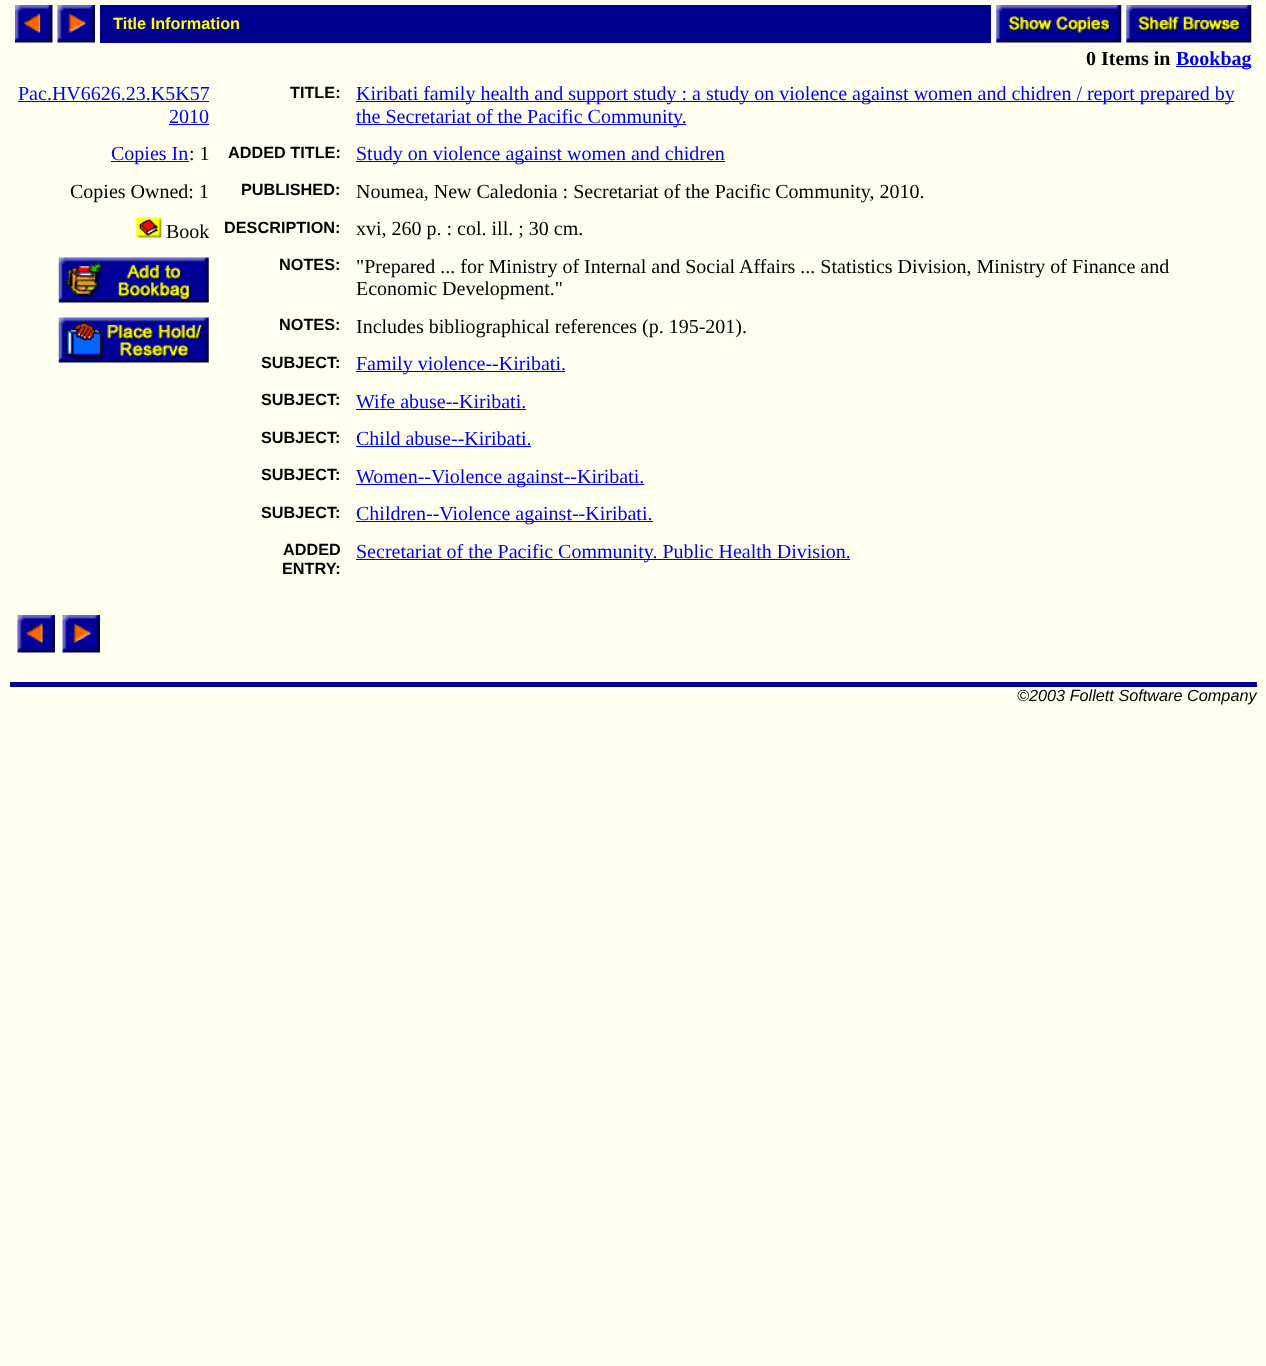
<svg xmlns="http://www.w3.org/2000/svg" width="1266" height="1366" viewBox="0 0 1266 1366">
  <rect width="100%" height="100%" fill="rgb(255,255,239)"/>
  <image x="15" y="5" width="38" height="38" href="pic1.png"/>
  <image x="57" y="5" width="38" height="38" href="pic2.png"/>
  <rect x="100" y="5" width="891" height="38" fill="rgb(0,0,142)"/>
  <text x="113" y="29" font-family="Liberation Sans" font-size="16.25" font-weight="bold" fill="rgb(255,255,0)">Title Information</text>
  <image x="996" y="5" width="126" height="38" href="pic3.png"/>
  <image x="1126" y="5" width="126" height="38" href="pic4.png"/>
  <text x="1086" y="65" font-family="Liberation Serif" font-size="20" font-weight="bold" fill="rgb(0,0,0)">0 Items in</text>
  <rect x="1176" y="66" width="75" height="1" fill="rgb(0,0,238)"/>
  <text x="1176" y="65" font-family="Liberation Serif" font-size="20" font-weight="bold" fill="rgb(0,0,238)">Bookbag</text>
  <text x="18" y="100" font-family="Liberation Serif" font-size="20" fill="rgb(0,0,238)">Pac.HV6626.23.K5K57</text>
  <rect x="18" y="101" width="191" height="1" fill="rgb(0,0,238)"/>
  <text x="169" y="123" font-family="Liberation Serif" font-size="20" fill="rgb(0,0,238)">2010</text>
  <rect x="169" y="124" width="40" height="1" fill="rgb(0,0,238)"/>
  <rect x="111" y="161" width="78" height="1" fill="rgb(0,0,238)"/>
  <text x="111" y="160" font-family="Liberation Serif" font-size="20" fill="rgb(0,0,238)">Copies In</text>
  <g font-family="Liberation Serif" font-size="20" fill="rgb(0,0,0)">
    <text x="189" y="160">: 1</text>
    <text x="70" y="198">Copies Owned: 1</text>
  </g>
  <image x="136" y="217" width="26" height="21" href="pic5.png"/>
  <text x="166" y="238" font-family="Liberation Serif" font-size="20" fill="rgb(0,0,0)">Book</text>
  <image x="58" y="257" width="151" height="46" href="pic6.png"/>
  <image x="58" y="317" width="151" height="46" href="pic7.png"/>
  <text x="290" y="98" font-family="Liberation Sans" font-size="16.25" font-weight="bold" fill="rgb(0,0,0)">TITLE:</text>
  <rect x="356" y="101" width="878" height="1" fill="rgb(0,0,238)"/>
  <text x="356" y="100" font-family="Liberation Serif" font-size="20" fill="rgb(0,0,238)">Kiribati family health and support study : a study on violence against women and chidren / report prepared by</text>
  <rect x="356" y="124" width="330" height="1" fill="rgb(0,0,238)"/>
  <text x="356" y="123" font-family="Liberation Serif" font-size="20" fill="rgb(0,0,238)">the Secretariat of the Pacific Community.</text>
  <text x="228" y="158" font-family="Liberation Sans" font-size="16.25" font-weight="bold" fill="rgb(0,0,0)">ADDED TITLE:</text>
  <rect x="356" y="161" width="369" height="1" fill="rgb(0,0,238)"/>
  <text x="356" y="160" font-family="Liberation Serif" font-size="20" fill="rgb(0,0,238)">Study on violence against women and chidren</text>
  <text x="241" y="195" font-family="Liberation Sans" font-size="16.25" font-weight="bold" fill="rgb(0,0,0)">PUBLISHED:</text>
  <text x="356" y="198" font-family="Liberation Serif" font-size="20" fill="rgb(0,0,0)">Noumea, New Caledonia : Secretariat of the Pacific Community, 2010.</text>
  <text x="224" y="233" font-family="Liberation Sans" font-size="16.25" font-weight="bold" fill="rgb(0,0,0)">DESCRIPTION:</text>
  <text x="356" y="235" font-family="Liberation Serif" font-size="20" fill="rgb(0,0,0)">xvi, 260 p. : col. ill. ; 30 cm.</text>
  <text x="279" y="270" font-family="Liberation Sans" font-size="16.25" font-weight="bold" fill="rgb(0,0,0)">NOTES:</text>
  <g font-family="Liberation Serif" font-size="20" fill="rgb(0,0,0)">
    <text>
      <tspan x="356" y="273">"Prepared ... for Ministry of Internal and Social Affairs ... Statistics Division, Ministry of Finance and</tspan>
      <tspan x="356" y="295">Economic Development."</tspan>
    </text>
  </g>
  <text x="279" y="330" font-family="Liberation Sans" font-size="16.25" font-weight="bold" fill="rgb(0,0,0)">NOTES:</text>
  <text x="356" y="333" font-family="Liberation Serif" font-size="20" fill="rgb(0,0,0)">Includes bibliographical references (p. 195-201).</text>
  <text x="261" y="368" font-family="Liberation Sans" font-size="16.25" font-weight="bold" fill="rgb(0,0,0)">SUBJECT:</text>
  <rect x="356" y="371" width="209" height="1" fill="rgb(0,0,238)"/>
  <text x="356" y="370" font-family="Liberation Serif" font-size="20" fill="rgb(0,0,238)">Family violence--Kiribati.</text>
  <text x="261" y="405" font-family="Liberation Sans" font-size="16.25" font-weight="bold" fill="rgb(0,0,0)">SUBJECT:</text>
  <text x="356" y="408" font-family="Liberation Serif" font-size="20" fill="rgb(0,0,238)">Wife abuse--Kiribati.</text>
  <rect x="356" y="409" width="170" height="1" fill="rgb(0,0,238)"/>
  <text x="261" y="443" font-family="Liberation Sans" font-size="16.25" font-weight="bold" fill="rgb(0,0,0)">SUBJECT:</text>
  <text x="356" y="445" font-family="Liberation Serif" font-size="20" fill="rgb(0,0,238)">Child abuse--Kiribati.</text>
  <rect x="356" y="446" width="175" height="1" fill="rgb(0,0,238)"/>
  <text x="261" y="480" font-family="Liberation Sans" font-size="16.25" font-weight="bold" fill="rgb(0,0,0)">SUBJECT:</text>
  <rect x="356" y="484" width="288" height="1" fill="rgb(0,0,238)"/>
  <text x="356" y="483" font-family="Liberation Serif" font-size="20" fill="rgb(0,0,238)">Women--Violence against--Kiribati.</text>
  <text x="261" y="518" font-family="Liberation Sans" font-size="16.25" font-weight="bold" fill="rgb(0,0,0)">SUBJECT:</text>
  <rect x="356" y="521" width="297" height="1" fill="rgb(0,0,238)"/>
  <text x="356" y="520" font-family="Liberation Serif" font-size="20" fill="rgb(0,0,238)">Children--Violence against--Kiribati.</text>
  <g font-family="Liberation Sans" font-size="16.25" font-weight="bold" fill="rgb(0,0,0)">
    <text x="283" y="555">ADDED</text>
    <text x="282" y="574">ENTRY:</text>
  </g>
  <rect x="356" y="559" width="494" height="1" fill="rgb(0,0,238)"/>
  <text x="356" y="558" font-family="Liberation Serif" font-size="20" fill="rgb(0,0,238)">Secretariat of the Pacific Community. Public Health Division.</text>
  <image x="17" y="615" width="38" height="38" href="pic8.png"/>
  <image x="62" y="615" width="38" height="38" href="pic2.png"/>
  <rect x="10" y="682" width="1247" height="5" fill="rgb(0,0,153)"/>
  <text x="1017" y="701" font-family="Liberation Sans" font-size="16.25" font-style="italic" fill="rgb(0,0,0)">©2003 Follett Software Company</text>
</svg>
